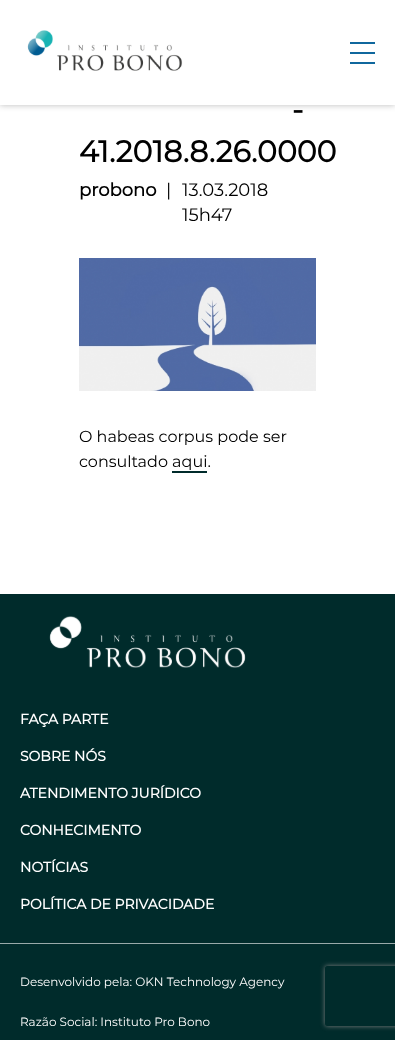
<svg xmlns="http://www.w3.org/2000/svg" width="395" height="1040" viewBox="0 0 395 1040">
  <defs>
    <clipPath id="clip1"><path d="M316 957H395V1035H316ZM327 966H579C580 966 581 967 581 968V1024C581 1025 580 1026 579 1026H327C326 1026 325 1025 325 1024V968C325 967 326 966 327 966Z" clip-rule="evenodd"/></clipPath>
  </defs>
  <rect width="100%" height="100%" fill="rgb(255,255,255)"/>
  <rect x="0" y="0" width="395" height="105" fill="rgba(0,0,0,0.27)" filter="blur(3px)"/>
  <rect x="0" y="0" width="395" height="105" fill="rgb(255,255,255)"/>
  <image x="27" y="30" width="156" height="41" href="pic1.png"/>
  <rect x="350" y="52" width="25" height="2" fill="rgb(16,103,157)"/>
  <rect x="350" y="42" width="25" height="2" fill="rgb(16,103,157)"/>
  <rect x="350" y="62" width="25" height="2" fill="rgb(16,103,157)"/>
  <g font-family="Montserrat" font-size="30" font-weight="bold" fill="rgb(0,0,0)">
    <text x="292" y="120">-</text>
    <text x="79" y="162">41.2018.8.26.0000</text>
  </g>
  <text x="79" y="196" font-family="Montserrat" font-size="18" font-weight="bold" fill="rgb(0,0,0)">probono</text>
  <g font-family="Montserrat" font-size="18" font-weight="100" fill="rgb(0,0,0)">
    <text x="166" y="196">|</text>
    <text>
      <tspan x="182" y="196">13.03.2018</tspan>
      <tspan x="182" y="221">15h47</tspan>
    </text>
  </g>
  <image x="79" y="258" width="237" height="133" href="pic2.png"/>
  <g font-family="Montserrat" font-size="16" font-weight="100" fill="rgb(0,0,0)">
    <text>
      <tspan x="79" y="442">O habeas corpus pode ser</tspan>
      <tspan x="79" y="467">consultado aqui.</tspan>
    </text>
  </g>
  <rect x="172" y="471" width="35" height="2" fill="rgb(0,43,43)"/>
  <rect x="0" y="594" width="395" height="446" fill="rgb(0,43,43)"/>
  <rect x="0" y="943" width="395" height="1" fill="rgb(153,170,170)"/>
  <image x="49" y="616" width="197" height="52" href="pic3.png"/>
  <g font-family="Montserrat" font-size="14" font-weight="bold" fill="rgb(255,255,255)">
    <text x="20" y="724">FAÇA PARTE</text>
    <text x="20" y="761">SOBRE NÓS</text>
    <text x="20" y="798">ATENDIMENTO JURÍDICO</text>
    <text x="20" y="835">CONHECIMENTO</text>
    <text x="20" y="872">NOTÍCIAS</text>
    <text x="20" y="909">POLÍTICA DE PRIVACIDADE</text>
  </g>
  <g font-family="Montserrat" font-size="12" font-weight="100" fill="rgb(255,255,255)">
    <text x="20" y="986">Desenvolvido pela: OKN Technology Agency</text>
    <text x="20" y="1026">Razão Social: Instituto Pro Bono</text>
  </g>
  <g clip-path="url(#clip1)">
    <rect x="325" y="966" width="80" height="60" rx="2" fill="rgb(128,128,128)" filter="blur(2.5px)"/>
  </g>
</svg>
